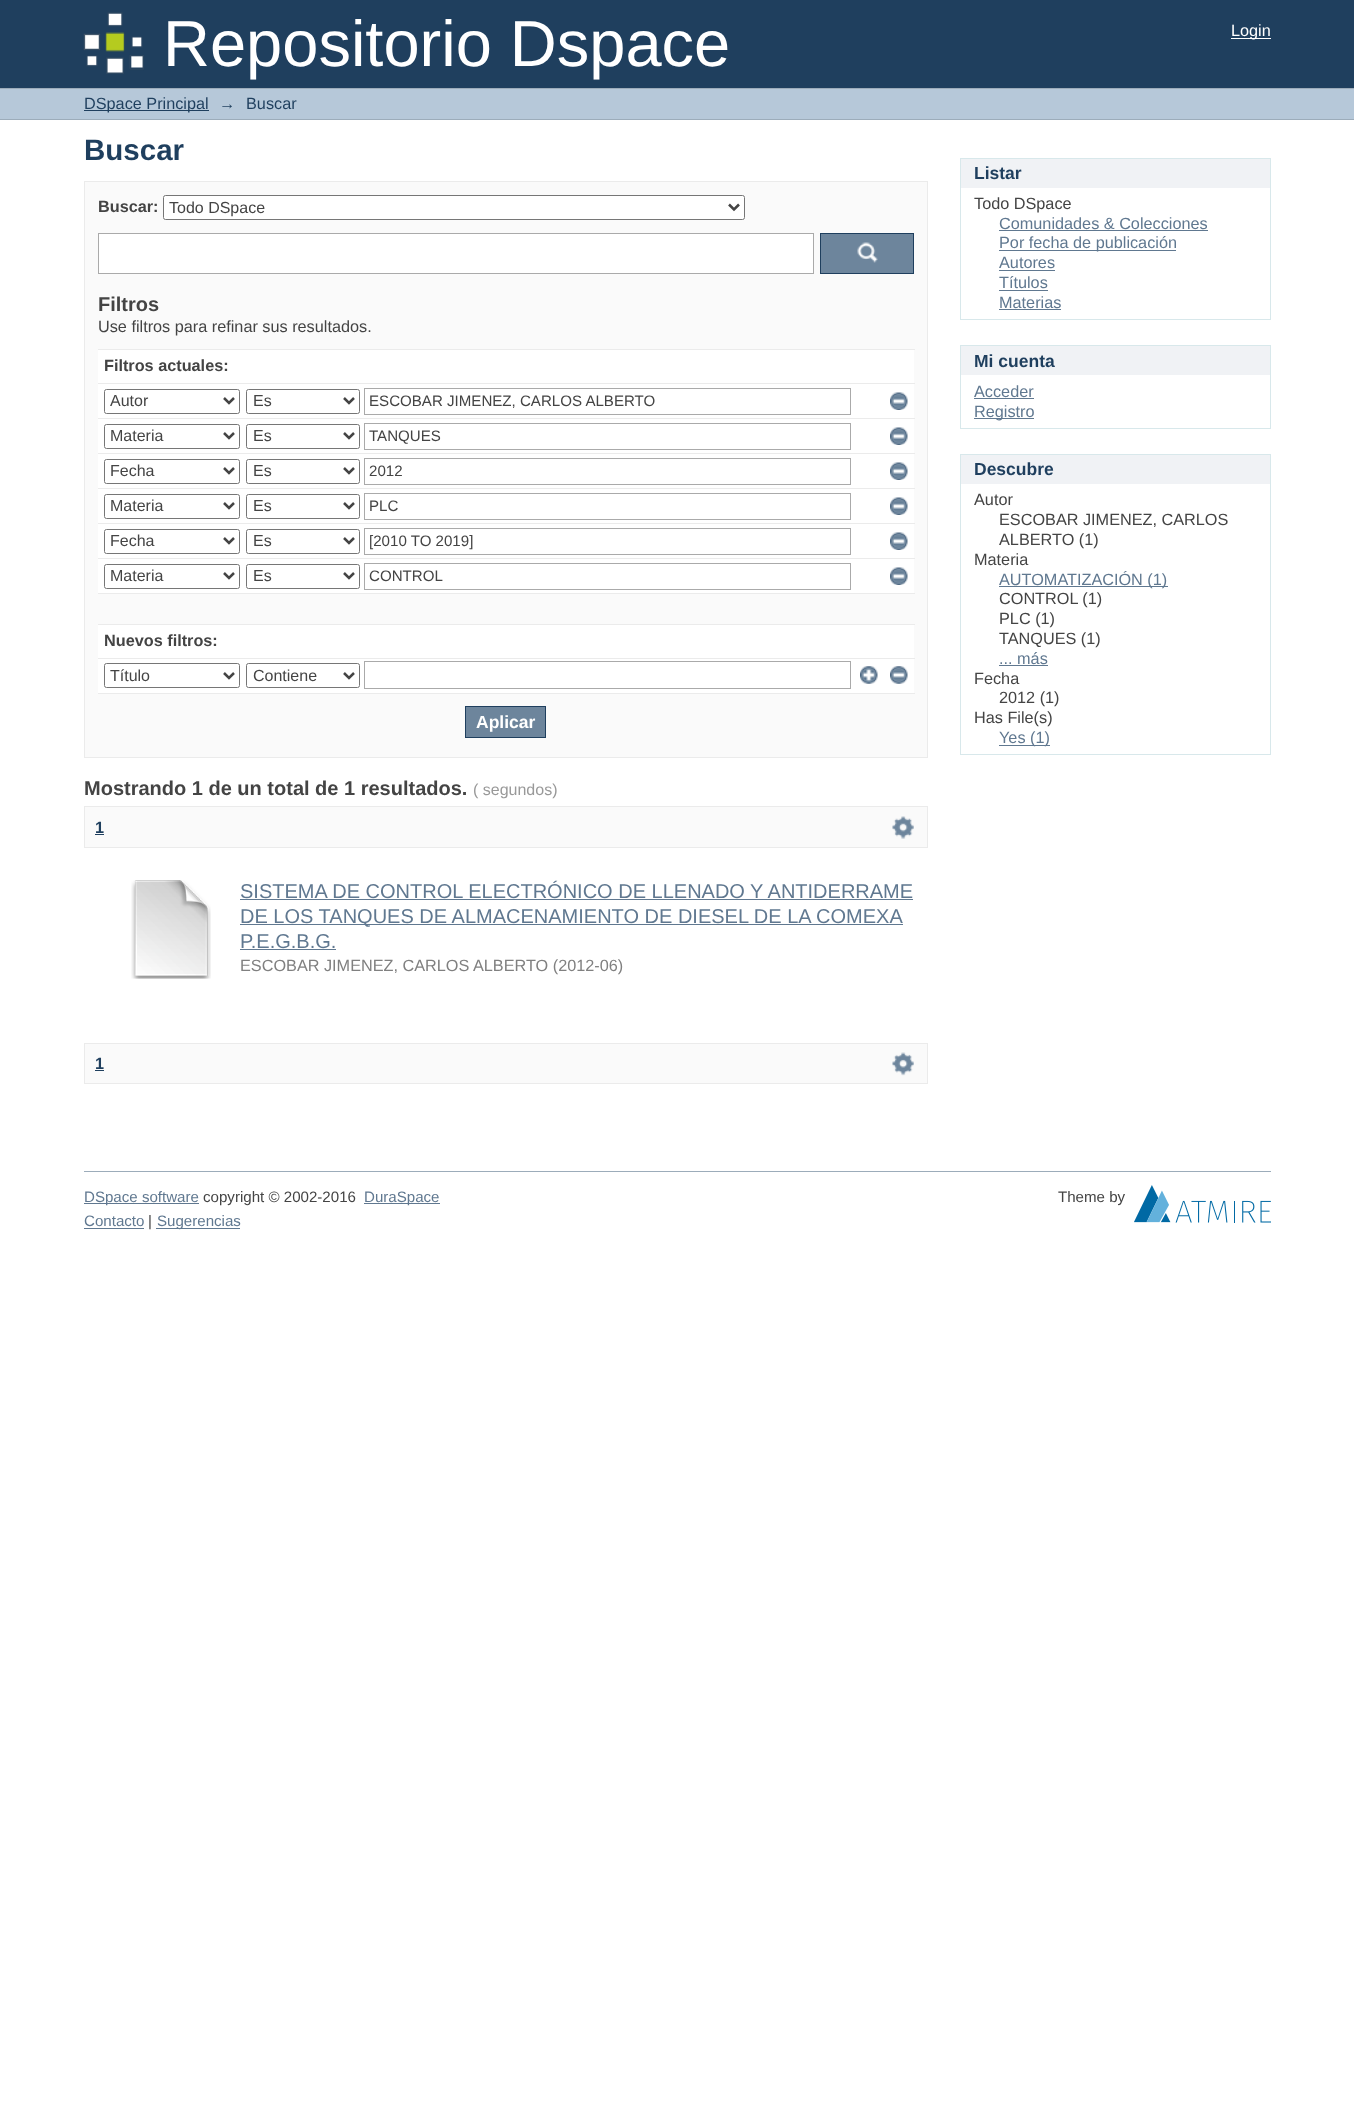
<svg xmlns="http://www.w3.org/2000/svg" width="1354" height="2120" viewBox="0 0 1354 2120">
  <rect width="100%" height="100%" fill="rgb(255,255,255)"/>
  <rect x="0" y="0" width="1354" height="88" fill="rgb(31,63,94)"/>
  <image x="83" y="12" width="61" height="62" href="pic1.png"/>
  <text x="163" y="66" font-family="Liberation Sans" font-size="65" fill="rgb(255,255,255)">Repositorio Dspace</text>
  <rect x="1231" y="38" width="40" height="1" fill="rgb(255,255,255)"/>
  <text x="1231" y="36" font-family="Liberation Sans" font-size="16.25" fill="rgb(255,255,255)">Login</text>
  <rect x="0" y="89" width="1354" height="30" fill="rgb(182,200,217)"/>
  <rect x="0" y="88" width="1354" height="1" fill="rgb(156,172,186)"/>
  <rect x="0" y="119" width="1354" height="1" fill="rgb(156,172,186)"/>
  <rect x="84" y="110" width="125" height="1" fill="rgb(31,63,94)"/>
  <g font-family="Liberation Sans" font-size="16.25" fill="rgb(31,63,94)">
    <text x="84" y="109">DSpace Principal</text>
    <text x="219" y="109">→</text>
    <text x="246" y="109">Buscar</text>
  </g>
  <text x="84" y="160" font-family="Liberation Sans" font-size="29.5" font-weight="bold" fill="rgb(31,63,94)">Buscar</text>
  <rect x="84.5" y="181.5" width="843" height="576" fill="rgb(250,250,250)" stroke="rgb(235,235,235)"/>
  <text x="98" y="212" font-family="Liberation Sans" font-size="16.25" font-weight="bold" fill="rgb(68,68,68)">Buscar:</text>
  <rect x="163.5" y="195.5" width="581" height="24" rx="2" fill="rgb(255,255,255)" stroke="rgb(118,118,118)"/>
  <path d="M729 204.5L734 209.5L739 204.5" fill="none" stroke="rgb(68,68,68)" stroke-width="2.5"/>
  <text x="169" y="213" font-family="Liberation Sans" font-size="16" fill="rgb(68,68,68)">Todo DSpace</text>
  <rect x="98.5" y="233.5" width="715" height="40" fill="rgb(255,255,255)" stroke="rgb(170,170,170)"/>
  <rect x="821" y="234" width="92" height="39" fill="rgb(109,133,156)"/>
  <image x="857" y="242" width="21" height="21" href="pic2.png"/>
  <rect x="820.5" y="233.5" width="93" height="40" fill="none" stroke="rgb(31,63,94)"/>
  <text x="98" y="311" font-family="Liberation Sans" font-size="20" font-weight="bold" fill="rgb(68,68,68)">Filtros</text>
  <text x="98" y="332" font-family="Liberation Sans" font-size="16.25" fill="rgb(68,68,68)">Use filtros para refinar sus resultados.</text>
  <rect x="98" y="350" width="816" height="343" fill="rgb(255,255,255)"/>
  <rect x="98" y="349" width="817" height="1" fill="rgb(235,235,235)"/>
  <text x="104" y="371" font-family="Liberation Sans" font-size="16.25" font-weight="bold" fill="rgb(68,68,68)">Filtros actuales:</text>
  <rect x="98" y="383" width="817" height="1" fill="rgb(235,235,235)"/>
  <rect x="104.5" y="389.5" width="135" height="24" rx="2" fill="none" stroke="rgb(118,118,118)"/>
  <path d="M224 398L229 403L234 398" fill="none" stroke="rgb(68,68,68)" stroke-width="2.5"/>
  <text x="110" y="406" font-family="Liberation Sans" font-size="16" fill="rgb(68,68,68)">Autor</text>
  <rect x="246.5" y="389.5" width="113" height="24" rx="2" fill="none" stroke="rgb(118,118,118)"/>
  <path d="M344 398L349 403L354 398" fill="none" stroke="rgb(68,68,68)" stroke-width="2.5"/>
  <text x="253" y="406" font-family="Liberation Sans" font-size="16" fill="rgb(68,68,68)">Es</text>
  <rect x="364.5" y="388.5" width="486" height="26" fill="none" stroke="rgb(170,170,170)"/>
  <text x="369" y="406" font-family="Liberation Sans" font-size="15.1" fill="rgb(68,68,68)">ESCOBAR JIMENEZ, CARLOS ALBERTO</text>
  <image x="890" y="392" width="18" height="18" href="pic3.png"/>
  <rect x="98" y="418" width="817" height="1" fill="rgb(235,235,235)"/>
  <rect x="104.5" y="424.5" width="135" height="24" rx="2" fill="none" stroke="rgb(118,118,118)"/>
  <path d="M224 433L229 438L234 433" fill="none" stroke="rgb(68,68,68)" stroke-width="2.5"/>
  <text x="110" y="441" font-family="Liberation Sans" font-size="16" fill="rgb(68,68,68)">Materia</text>
  <rect x="246.5" y="424.5" width="113" height="24" rx="2" fill="none" stroke="rgb(118,118,118)"/>
  <path d="M344 433L349 438L354 433" fill="none" stroke="rgb(68,68,68)" stroke-width="2.5"/>
  <text x="253" y="441" font-family="Liberation Sans" font-size="16" fill="rgb(68,68,68)">Es</text>
  <rect x="364.5" y="423.5" width="486" height="26" fill="none" stroke="rgb(170,170,170)"/>
  <text x="369" y="441" font-family="Liberation Sans" font-size="15.1" fill="rgb(68,68,68)">TANQUES</text>
  <image x="890" y="427" width="18" height="18" href="pic3.png"/>
  <rect x="98" y="453" width="817" height="1" fill="rgb(235,235,235)"/>
  <rect x="104.5" y="459.5" width="135" height="24" rx="2" fill="none" stroke="rgb(118,118,118)"/>
  <path d="M224 468L229 473L234 468" fill="none" stroke="rgb(68,68,68)" stroke-width="2.5"/>
  <text x="110" y="476" font-family="Liberation Sans" font-size="16" fill="rgb(68,68,68)">Fecha</text>
  <rect x="246.5" y="459.5" width="113" height="24" rx="2" fill="none" stroke="rgb(118,118,118)"/>
  <path d="M344 468L349 473L354 468" fill="none" stroke="rgb(68,68,68)" stroke-width="2.5"/>
  <text x="253" y="476" font-family="Liberation Sans" font-size="16" fill="rgb(68,68,68)">Es</text>
  <rect x="364.5" y="458.5" width="486" height="26" fill="none" stroke="rgb(170,170,170)"/>
  <text x="369" y="476" font-family="Liberation Sans" font-size="15.1" fill="rgb(68,68,68)">2012</text>
  <image x="890" y="462" width="18" height="18" href="pic3.png"/>
  <rect x="98" y="488" width="817" height="1" fill="rgb(235,235,235)"/>
  <rect x="104.5" y="494.5" width="135" height="24" rx="2" fill="none" stroke="rgb(118,118,118)"/>
  <path d="M224 503L229 508L234 503" fill="none" stroke="rgb(68,68,68)" stroke-width="2.5"/>
  <text x="110" y="511" font-family="Liberation Sans" font-size="16" fill="rgb(68,68,68)">Materia</text>
  <rect x="246.5" y="494.5" width="113" height="24" rx="2" fill="none" stroke="rgb(118,118,118)"/>
  <path d="M344 503L349 508L354 503" fill="none" stroke="rgb(68,68,68)" stroke-width="2.5"/>
  <text x="253" y="511" font-family="Liberation Sans" font-size="16" fill="rgb(68,68,68)">Es</text>
  <rect x="364.5" y="493.5" width="486" height="26" fill="none" stroke="rgb(170,170,170)"/>
  <text x="369" y="511" font-family="Liberation Sans" font-size="15.1" fill="rgb(68,68,68)">PLC</text>
  <image x="890" y="497" width="18" height="18" href="pic3.png"/>
  <rect x="98" y="523" width="817" height="1" fill="rgb(235,235,235)"/>
  <rect x="104.5" y="529.5" width="135" height="24" rx="2" fill="none" stroke="rgb(118,118,118)"/>
  <path d="M224 538L229 543L234 538" fill="none" stroke="rgb(68,68,68)" stroke-width="2.5"/>
  <text x="110" y="546" font-family="Liberation Sans" font-size="16" fill="rgb(68,68,68)">Fecha</text>
  <rect x="246.5" y="529.5" width="113" height="24" rx="2" fill="none" stroke="rgb(118,118,118)"/>
  <path d="M344 538L349 543L354 538" fill="none" stroke="rgb(68,68,68)" stroke-width="2.5"/>
  <text x="253" y="546" font-family="Liberation Sans" font-size="16" fill="rgb(68,68,68)">Es</text>
  <rect x="364.5" y="528.5" width="486" height="26" fill="none" stroke="rgb(170,170,170)"/>
  <text x="369" y="546" font-family="Liberation Sans" font-size="15.1" fill="rgb(68,68,68)">[2010 TO 2019]</text>
  <image x="890" y="532" width="18" height="18" href="pic3.png"/>
  <rect x="98" y="558" width="817" height="1" fill="rgb(235,235,235)"/>
  <rect x="104.5" y="564.5" width="135" height="24" rx="2" fill="none" stroke="rgb(118,118,118)"/>
  <path d="M224 573L229 578L234 573" fill="none" stroke="rgb(68,68,68)" stroke-width="2.5"/>
  <text x="110" y="581" font-family="Liberation Sans" font-size="16" fill="rgb(68,68,68)">Materia</text>
  <rect x="246.5" y="564.5" width="113" height="24" rx="2" fill="none" stroke="rgb(118,118,118)"/>
  <path d="M344 573L349 578L354 573" fill="none" stroke="rgb(68,68,68)" stroke-width="2.5"/>
  <text x="253" y="581" font-family="Liberation Sans" font-size="16" fill="rgb(68,68,68)">Es</text>
  <rect x="364.5" y="563.5" width="486" height="26" fill="none" stroke="rgb(170,170,170)"/>
  <text x="369" y="581" font-family="Liberation Sans" font-size="15.1" fill="rgb(68,68,68)">CONTROL</text>
  <image x="890" y="567" width="18" height="18" href="pic3.png"/>
  <rect x="98" y="594" width="816" height="30" fill="rgb(250,250,250)"/>
  <rect x="98" y="593" width="817" height="1" fill="rgb(235,235,235)"/>
  <rect x="98" y="624" width="817" height="1" fill="rgb(235,235,235)"/>
  <text x="104" y="646" font-family="Liberation Sans" font-size="16.25" font-weight="bold" fill="rgb(68,68,68)">Nuevos filtros:</text>
  <rect x="98" y="658" width="817" height="1" fill="rgb(235,235,235)"/>
  <rect x="104.5" y="663.5" width="135" height="24" rx="2" fill="none" stroke="rgb(118,118,118)"/>
  <path d="M224 673L229 678L234 673" fill="none" stroke="rgb(68,68,68)" stroke-width="2.5"/>
  <text x="110" y="681" font-family="Liberation Sans" font-size="16" fill="rgb(68,68,68)">Título</text>
  <rect x="246.5" y="663.5" width="113" height="24" rx="2" fill="none" stroke="rgb(118,118,118)"/>
  <path d="M344 673L349 678L354 673" fill="none" stroke="rgb(68,68,68)" stroke-width="2.5"/>
  <text x="253" y="681" font-family="Liberation Sans" font-size="16" fill="rgb(68,68,68)">Contiene</text>
  <rect x="364.5" y="661.5" width="486" height="27" fill="none" stroke="rgb(170,170,170)"/>
  <image x="860" y="666" width="18" height="18" href="pic4.png"/>
  <image x="890" y="666" width="18" height="18" href="pic5.png"/>
  <rect x="98" y="693" width="817" height="1" fill="rgb(235,235,235)"/>
  <rect x="465.5" y="706.5" width="80" height="31" fill="rgb(109,133,156)" stroke="rgb(31,63,94)"/>
  <text x="476" y="728" font-family="Liberation Sans" font-size="17.5" font-weight="bold" fill="rgb(255,255,255)">Aplicar</text>
  <text x="84" y="795" font-family="Liberation Sans" font-size="20" font-weight="bold" fill="rgb(68,68,68)">Mostrando 1 de un total de 1 resultados.</text>
  <text x="473" y="795" font-family="Liberation Sans" font-size="16" fill="rgb(153,153,153)">( segundos)</text>
  <rect x="84.5" y="806.5" width="843" height="41" fill="rgb(250,250,250)" stroke="rgb(235,235,235)"/>
  <text x="95" y="833" font-family="Liberation Sans" font-size="16.25" font-weight="bold" fill="rgb(31,63,94)">1</text>
  <rect x="95" y="834" width="9" height="1" fill="rgb(31,63,94)"/>
  <image x="892" y="816" width="22" height="23" href="pic6.png"/>
  <image x="131" y="880" width="80" height="99" href="pic7.png"/>
  <text x="240" y="898" font-family="Liberation Sans" font-size="20" fill="rgb(96,120,144)">SISTEMA DE CONTROL ELECTRÓNICO DE LLENADO Y ANTIDERRAME</text>
  <rect x="240" y="899" width="673" height="1" fill="rgb(96,120,144)"/>
  <rect x="240" y="924" width="663" height="1" fill="rgb(96,120,144)"/>
  <g font-family="Liberation Sans" font-size="20" fill="rgb(96,120,144)">
    <text>
      <tspan x="240" y="923">DE LOS TANQUES DE ALMACENAMIENTO DE DIESEL DE LA COMEXA</tspan>
      <tspan x="240" y="948">P.E.G.B.G.</tspan>
    </text>
  </g>
  <rect x="240" y="949" width="96" height="1" fill="rgb(96,120,144)"/>
  <text x="240" y="971" font-family="Liberation Sans" font-size="16.25" fill="rgb(128,128,128)">ESCOBAR JIMENEZ, CARLOS ALBERTO (2012-06)</text>
  <rect x="84.5" y="1043.5" width="843" height="40" fill="rgb(250,250,250)" stroke="rgb(235,235,235)"/>
  <text x="95" y="1069" font-family="Liberation Sans" font-size="16.25" font-weight="bold" fill="rgb(31,63,94)">1</text>
  <rect x="95" y="1070" width="9" height="1" fill="rgb(31,63,94)"/>
  <image x="892" y="1052" width="22" height="24" href="pic8.png"/>
  <rect x="961" y="159" width="309" height="29" fill="rgb(240,242,245)"/>
  <rect x="960" y="158" width="311" height="1" fill="rgb(216,232,235)"/>
  <rect x="1270" y="158" width="1" height="162" fill="rgb(216,232,235)"/>
  <rect x="960" y="158" width="1" height="30" fill="rgb(216,232,235)"/>
  <text x="974" y="179" font-family="Liberation Sans" font-size="17.5" font-weight="bold" fill="rgb(31,63,94)">Listar</text>
  <rect x="960" y="319" width="311" height="1" fill="rgb(216,232,235)"/>
  <rect x="960" y="188" width="1" height="132" fill="rgb(216,232,235)"/>
  <text x="974" y="209" font-family="Liberation Sans" font-size="16.25" fill="rgb(68,68,68)">Todo DSpace</text>
  <text x="999" y="229" font-family="Liberation Sans" font-size="16.25" fill="rgb(96,120,144)">Comunidades &amp; Colecciones</text>
  <rect x="999" y="230" width="209" height="1" fill="rgb(96,120,144)"/>
  <rect x="999" y="250" width="177" height="1" fill="rgb(96,120,144)"/>
  <g font-family="Liberation Sans" font-size="16.25" fill="rgb(96,120,144)">
    <text>
      <tspan x="999" y="248">Por fecha de publicación</tspan>
      <tspan x="999" y="268">Autores</tspan>
    </text>
  </g>
  <rect x="999" y="270" width="56" height="1" fill="rgb(96,120,144)"/>
  <text x="999" y="288" font-family="Liberation Sans" font-size="16.25" fill="rgb(96,120,144)">Títulos</text>
  <rect x="999" y="290" width="49" height="1" fill="rgb(96,120,144)"/>
  <text x="999" y="308" font-family="Liberation Sans" font-size="16.25" fill="rgb(96,120,144)">Materias</text>
  <rect x="999" y="309" width="62" height="1" fill="rgb(96,120,144)"/>
  <rect x="961" y="346" width="309" height="29" fill="rgb(240,242,245)"/>
  <rect x="960" y="345" width="311" height="1" fill="rgb(216,232,235)"/>
  <rect x="1270" y="345" width="1" height="84" fill="rgb(216,232,235)"/>
  <rect x="960" y="345" width="1" height="30" fill="rgb(216,232,235)"/>
  <text x="974" y="367" font-family="Liberation Sans" font-size="17.5" font-weight="bold" fill="rgb(31,63,94)">Mi cuenta</text>
  <rect x="960" y="428" width="311" height="1" fill="rgb(216,232,235)"/>
  <rect x="960" y="375" width="1" height="54" fill="rgb(216,232,235)"/>
  <text x="974" y="397" font-family="Liberation Sans" font-size="16.25" fill="rgb(96,120,144)">Acceder</text>
  <rect x="974" y="398" width="60" height="1" fill="rgb(96,120,144)"/>
  <rect x="974" y="418" width="60" height="1" fill="rgb(96,120,144)"/>
  <text x="974" y="417" font-family="Liberation Sans" font-size="16.25" fill="rgb(96,120,144)">Registro</text>
  <rect x="961" y="455" width="309" height="29" fill="rgb(240,242,245)"/>
  <rect x="960" y="454" width="311" height="1" fill="rgb(216,232,235)"/>
  <rect x="1270" y="454" width="1" height="301" fill="rgb(216,232,235)"/>
  <rect x="960" y="454" width="1" height="30" fill="rgb(216,232,235)"/>
  <text x="974" y="475" font-family="Liberation Sans" font-size="17.5" font-weight="bold" fill="rgb(31,63,94)">Descubre</text>
  <rect x="960" y="754" width="311" height="1" fill="rgb(216,232,235)"/>
  <rect x="960" y="484" width="1" height="271" fill="rgb(216,232,235)"/>
  <g font-family="Liberation Sans" font-size="16.25" fill="rgb(68,68,68)">
    <text x="974" y="505">Autor</text>
    <text>
      <tspan x="999" y="525">ESCOBAR JIMENEZ, CARLOS</tspan>
      <tspan x="999" y="545">ALBERTO (1)</tspan>
    </text>
    <text x="974" y="565">Materia</text>
  </g>
  <rect x="999" y="586" width="169" height="1" fill="rgb(96,120,144)"/>
  <text x="999" y="585" font-family="Liberation Sans" font-size="16.25" fill="rgb(96,120,144)">AUTOMATIZACIÓN (1)</text>
  <g font-family="Liberation Sans" font-size="16.25" fill="rgb(68,68,68)">
    <text>
      <tspan x="999" y="604">CONTROL (1)</tspan>
      <tspan x="999" y="624">PLC (1)</tspan>
      <tspan x="999" y="644">TANQUES (1)</tspan>
    </text>
  </g>
  <text x="999" y="664" font-family="Liberation Sans" font-size="16.25" fill="rgb(96,120,144)">... más</text>
  <rect x="999" y="665" width="49" height="1" fill="rgb(96,120,144)"/>
  <g font-family="Liberation Sans" font-size="16.25" fill="rgb(68,68,68)">
    <text x="974" y="684">Fecha</text>
    <text x="999" y="703">2012 (1)</text>
    <text x="974" y="723">Has File(s)</text>
  </g>
  <rect x="999" y="745" width="51" height="1" fill="rgb(96,120,144)"/>
  <text x="999" y="743" font-family="Liberation Sans" font-size="16.25" fill="rgb(96,120,144)">Yes (1)</text>
  <rect x="84" y="1171" width="1187" height="1" fill="rgb(156,172,186)"/>
  <rect x="84" y="1203" width="115" height="1" fill="rgb(96,120,144)"/>
  <text x="84" y="1202" font-family="Liberation Sans" font-size="15.1" fill="rgb(96,120,144)">DSpace software</text>
  <text x="203" y="1202" font-family="Liberation Sans" font-size="15.1" fill="rgb(68,68,68)">copyright © 2002-2016</text>
  <rect x="364" y="1203" width="76" height="1" fill="rgb(96,120,144)"/>
  <text x="364" y="1202" font-family="Liberation Sans" font-size="15.1" fill="rgb(96,120,144)">DuraSpace</text>
  <text x="1058" y="1202" font-family="Liberation Sans" font-size="15.1" fill="rgb(68,68,68)">Theme by</text>
  <image x="1134" y="1185" width="137" height="38" href="pic9.png"/>
  <text x="84" y="1226" font-family="Liberation Sans" font-size="15.1" fill="rgb(96,120,144)">Contacto</text>
  <rect x="84" y="1228" width="60" height="1" fill="rgb(96,120,144)"/>
  <text x="148" y="1226" font-family="Liberation Sans" font-size="15.1" fill="rgb(68,68,68)">|</text>
  <rect x="156" y="1228" width="84" height="1" fill="rgb(96,120,144)"/>
  <text x="157" y="1226" font-family="Liberation Sans" font-size="15.1" fill="rgb(96,120,144)">Sugerencias</text>
</svg>
